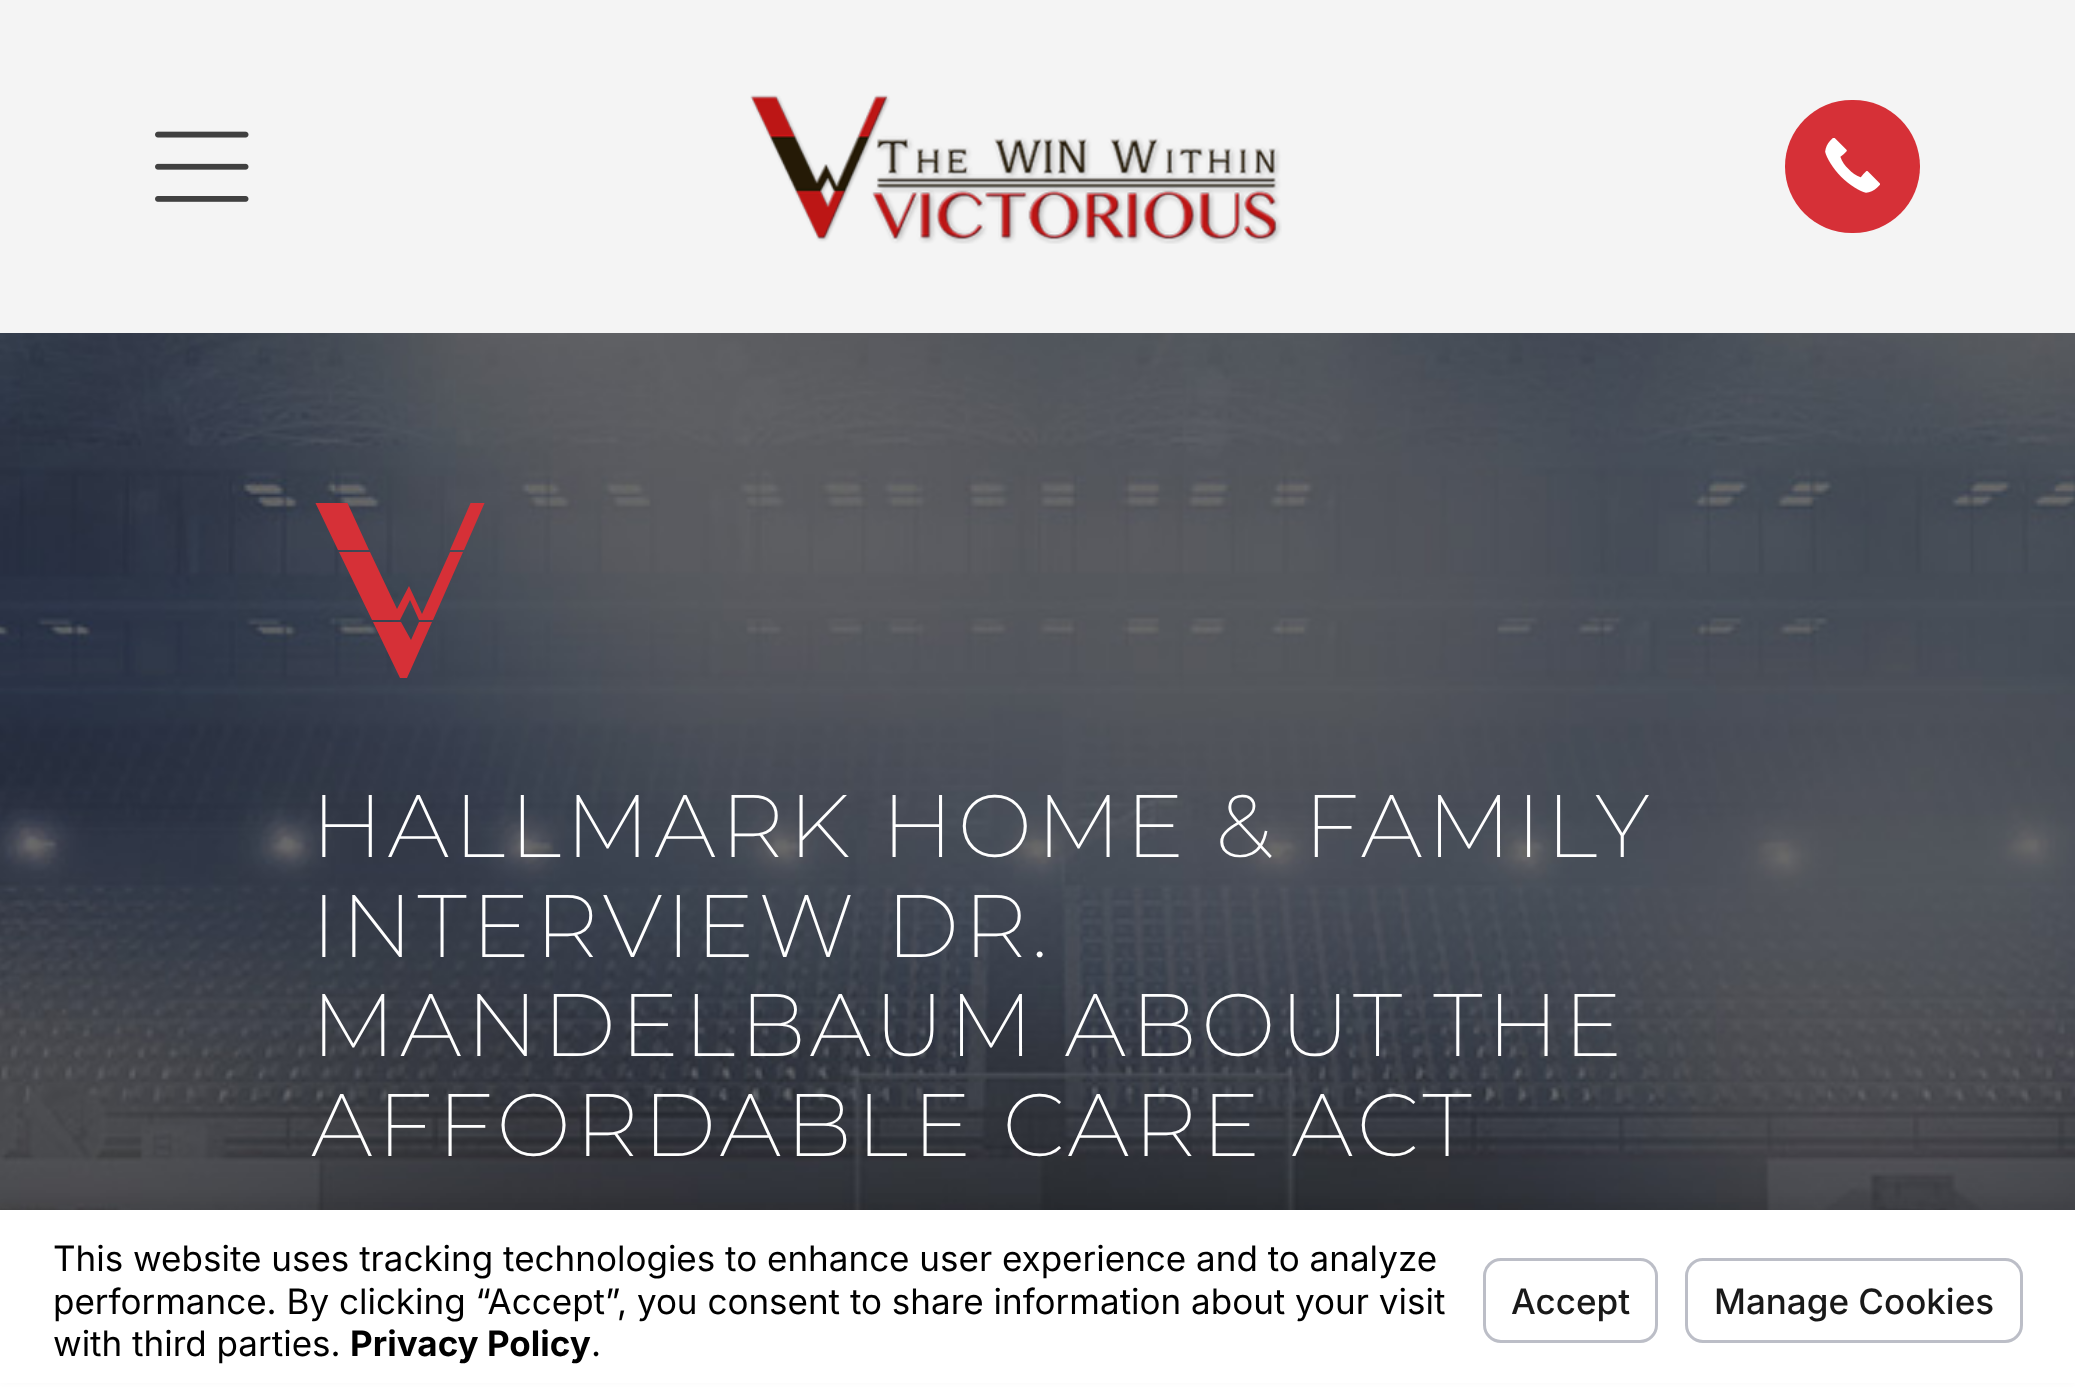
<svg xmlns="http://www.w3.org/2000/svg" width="2075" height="1390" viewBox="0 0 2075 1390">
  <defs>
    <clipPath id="clip1"><rect x="313" y="503" width="175" height="177"/></clipPath>
  </defs>
  <rect width="100%" height="100%" fill="rgb(255,255,255)"/>
  <rect x="0" y="0" width="2075" height="333" fill="rgb(244,244,244)"/>
  <image x="155" y="131" width="94" height="71" href="pic1.png"/>
  <image x="750" y="95" width="532" height="149" href="pic2.png"/>
  <rect x="1785" y="100" width="135" height="133" rx="66.5" fill="rgb(214,48,55)"/>
  <image x="1825" y="138" width="55" height="55" href="pic3.png"/>
  <image x="0" y="333" width="2075" height="877" href="pic4.png"/>
  <g clip-path="url(#clip1)">
    <path d="M450 552H463L433 620H419L410 600L400 620H372L339 552H370L397 609L409 586L422 614ZM471 502L450 550H464L485 502ZM347 502H315L338 550H369ZM411 640L401 622H373L400 678H407L432 622H419Z" fill="rgb(214,48,55)"/>
  </g>
  <g font-family="Montserrat" font-size="88.5" font-weight="200" letter-spacing="4.4" fill="rgb(255,255,255)">
    <text>
      <tspan x="311" y="857">HALLMARK HOME &amp; FAMILY</tspan>
      <tspan x="311" y="957">INTERVIEW DR.</tspan>
      <tspan x="311" y="1056">MANDELBAUM ABOUT THE</tspan>
      <tspan x="311" y="1156">AFFORDABLE CARE ACT</tspan>
    </text>
  </g>
  <rect x="0" y="1200" width="2075" height="180" fill="rgba(0,0,0,0.05)" filter="blur(4px)"/>
  <rect x="0" y="1210" width="2075" height="173" fill="rgb(255,255,255)"/>
  <g font-family="Inter" font-size="35" fill="rgb(0,0,0)">
    <text>
      <tspan x="53" y="1271">This website uses tracking technologies to enhance user experience and to analyze</tspan>
      <tspan x="53" y="1314">performance. By clicking “Accept”, you consent to share information about your visit</tspan>
      <tspan x="53" y="1356">with third parties.</tspan>
    </text>
  </g>
  <text x="350" y="1356" font-family="Inter" font-size="35" font-weight="bold" fill="rgb(0,0,0)">Privacy Policy</text>
  <text x="591" y="1356" font-family="Inter" font-size="35" fill="rgb(0,0,0)">.</text>
  <rect x="1484.5" y="1259.5" width="172" height="82" rx="16.5" fill="none" stroke="rgb(188,190,199)" stroke-width="3"/>
  <text x="1511" y="1314" font-family="Inter" font-size="35" font-weight="500" fill="rgb(25,25,25)">Accept</text>
  <rect x="1686.5" y="1259.5" width="335" height="82" rx="16.5" fill="none" stroke="rgb(188,190,199)" stroke-width="3"/>
  <text x="1714" y="1314" font-family="Inter" font-size="35" font-weight="500" fill="rgb(25,25,25)">Manage Cookies</text>
</svg>
